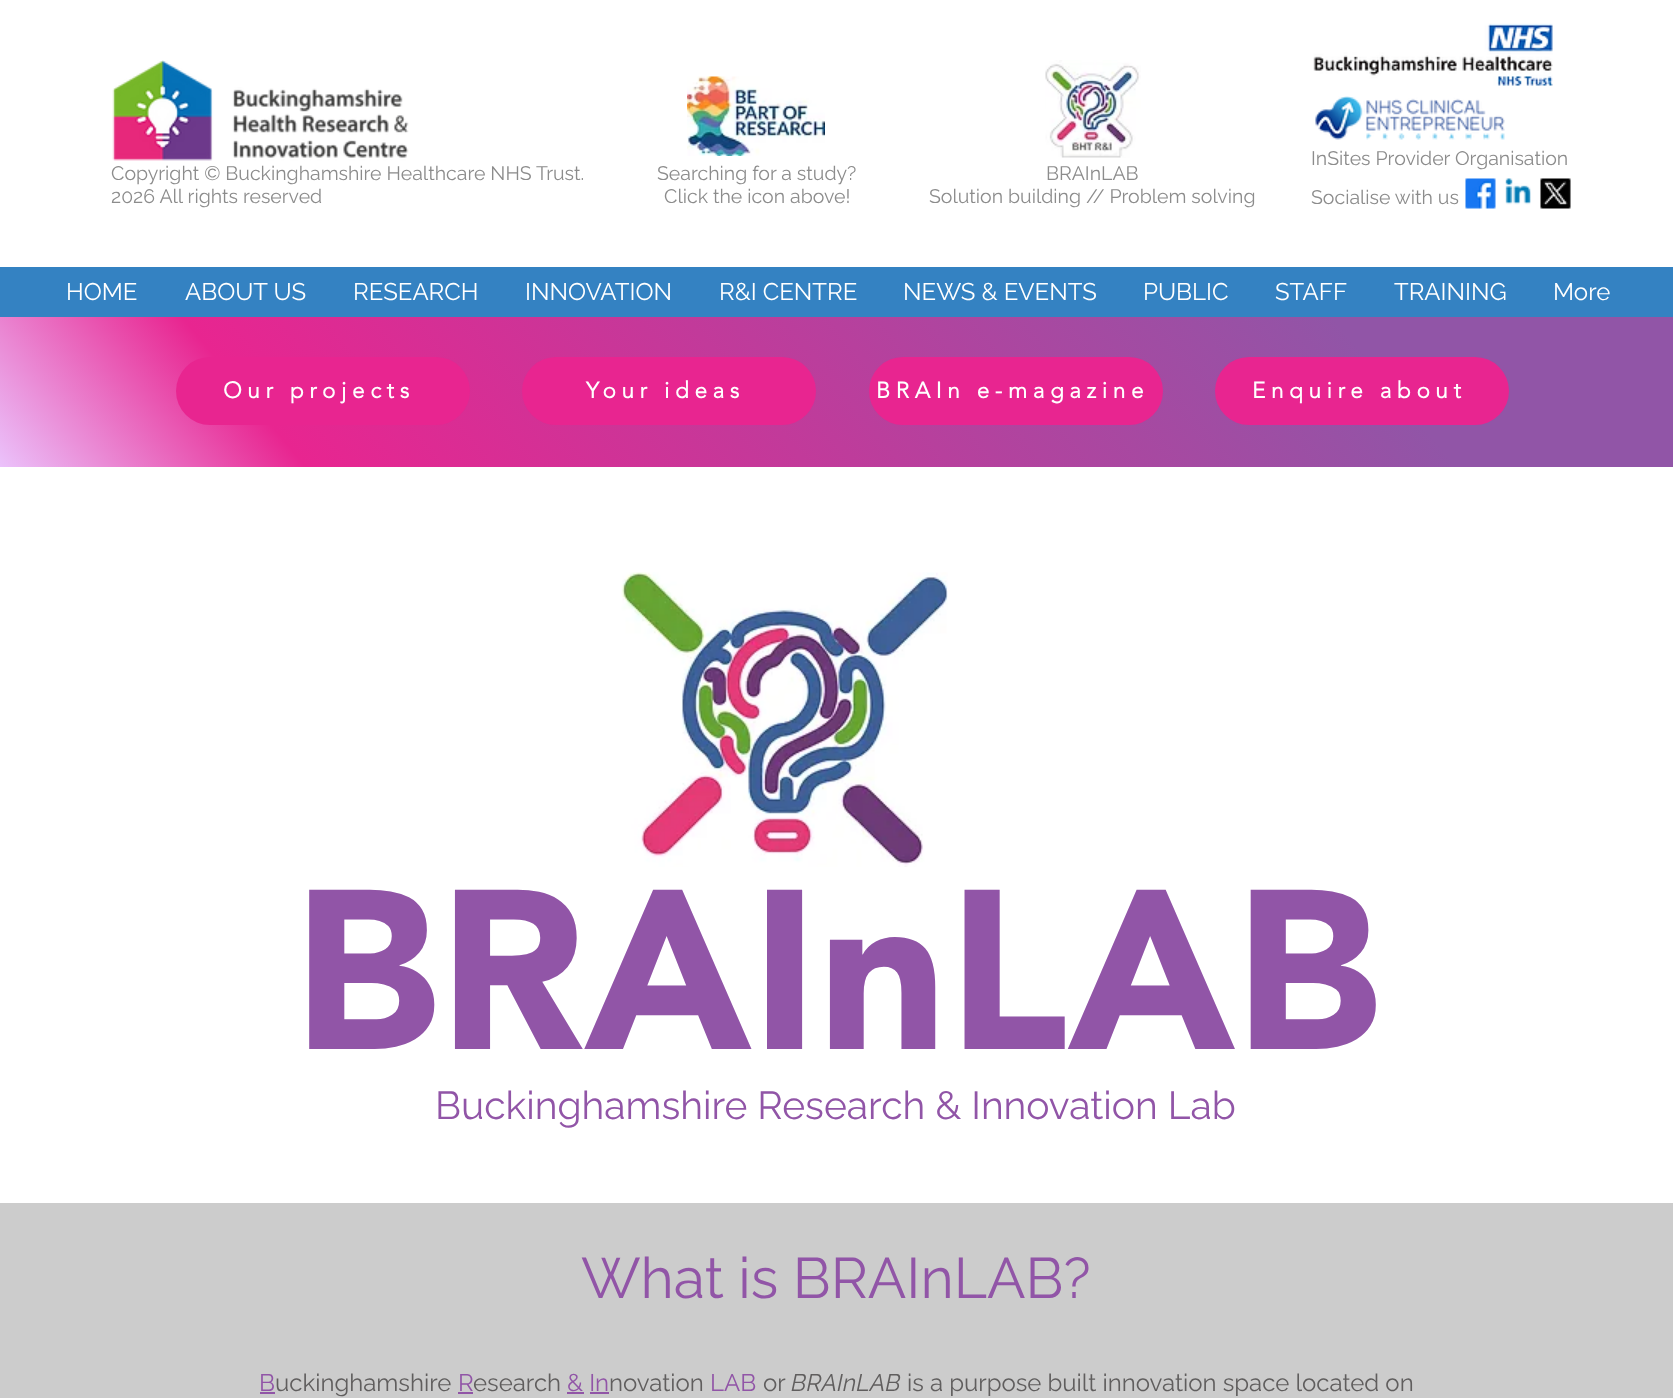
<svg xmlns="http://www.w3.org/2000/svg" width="1673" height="1398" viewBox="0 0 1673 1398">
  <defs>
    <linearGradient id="g1" gradientUnits="userSpaceOnUse" x1="302" y1="833" x2="1372" y2="-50"><stop offset="0" stop-color="rgb(235,194,251)"/><stop offset="0.17" stop-color="rgb(232,37,144)"/><stop offset="0.81" stop-color="rgb(145,85,167)"/></linearGradient>
  </defs>
  <rect width="100%" height="100%" fill="rgb(255,255,255)"/>
  <image x="112" y="60" width="297" height="101" href="pic1.png"/>
  <image x="1045" y="60" width="96" height="98" href="pic2.png"/>
  <image x="1313" y="23" width="240" height="63" href="pic3.png"/>
  <image x="1315" y="96" width="190" height="44" href="pic4.png"/>
  <g font-family="Raleway" font-size="19.5" fill="rgb(140,140,140)">
    <text x="1311" y="165">InSites Provider Organisation</text>
    <text>
      <tspan x="111" y="180">Copyright © Buckinghamshire Healthcare NHS Trust.</tspan>
      <tspan x="111" y="203">2026 All rights reserved</tspan>
    </text>
  </g>
  <image x="687" y="76" width="138" height="80" href="pic5.png"/>
  <g font-family="Raleway" font-size="19.5" fill="rgb(140,140,140)">
    <text x="657" y="180">Searching for a study?</text>
    <text x="664" y="203">Click the icon above!</text>
    <text x="1046" y="180">BRAInLAB</text>
    <text x="929" y="203">Solution building // Problem solving</text>
    <text x="1311" y="204">Socialise with us</text>
  </g>
  <image x="1465" y="178" width="31" height="31" href="pic6.png"/>
  <image x="1505" y="178" width="26" height="27" href="pic7.png"/>
  <image x="1540" y="178" width="31" height="31" href="pic8.png"/>
  <rect x="0" y="267" width="1673" height="50" fill="rgb(52,130,194)"/>
  <g font-family="Raleway" font-size="24" fill="rgb(255,255,255)">
    <text x="66" y="300">HOME</text>
    <text x="185" y="300">ABOUT US</text>
    <text x="353" y="300">RESEARCH</text>
    <text x="525" y="300">INNOVATION</text>
    <text x="719" y="300">R&amp;I CENTRE</text>
    <text x="903" y="300">NEWS &amp; EVENTS</text>
    <text x="1143" y="300">PUBLIC</text>
    <text x="1275" y="300">STAFF</text>
    <text x="1394" y="300">TRAINING</text>
    <text x="1553" y="300">More</text>
  </g>
  <rect x="0" y="317" width="1673" height="150" fill="url(#g1)"/>
  <rect x="176" y="357" width="294" height="68" rx="34" fill="rgb(232,37,144)"/>
  <text x="223" y="398" font-family="'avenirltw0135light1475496'" font-size="22.5" font-weight="bold" letter-spacing="5.6" fill="rgb(255,255,255)">Our projects</text>
  <rect x="522" y="357" width="294" height="68" rx="34" fill="rgb(232,37,144)"/>
  <text x="586" y="398" font-family="'avenirltw0135light1475496'" font-size="22.5" font-weight="bold" letter-spacing="5.6" fill="rgb(255,255,255)">Your ideas</text>
  <rect x="869" y="357" width="294" height="68" rx="34" fill="rgb(232,37,144)"/>
  <text x="876" y="398" font-family="'avenirltw0135light1475496'" font-size="22.5" font-weight="bold" letter-spacing="5.6" fill="rgb(255,255,255)">BRAIn e-magazine</text>
  <rect x="1215" y="357" width="294" height="68" rx="34" fill="rgb(232,37,144)"/>
  <text x="1252" y="398" font-family="'avenirltw0135light1475496'" font-size="22.5" font-weight="bold" letter-spacing="5.6" fill="rgb(255,255,255)">Enquire about</text>
  <image x="621" y="572" width="327" height="295" href="pic9.png"/>
  <text x="293" y="1049" font-family="Avenir" font-size="225" font-weight="900" fill="rgb(145,85,167)">BRAInLAB</text>
  <text x="435" y="1119" font-family="Raleway" font-size="39" fill="rgb(145,85,167)">Buckinghamshire Research &amp; Innovation Lab</text>
  <rect x="0" y="1203" width="1673" height="195" fill="rgb(204,204,204)"/>
  <text x="581" y="1298" font-family="Raleway" font-size="57" fill="rgb(145,85,167)">What is BRAInLAB?</text>
  <text x="259" y="1391" font-family="Raleway" font-size="24" fill="rgb(145,85,167)">B</text>
  <text x="275" y="1391" font-family="Raleway" font-size="24" fill="rgb(96,94,94)">uckinghamshire</text>
  <rect x="260" y="1392" width="15" height="2" fill="rgb(145,85,167)"/>
  <text x="458" y="1391" font-family="Raleway" font-size="24" fill="rgb(145,85,167)">R</text>
  <text x="473" y="1391" font-family="Raleway" font-size="24" fill="rgb(96,94,94)">esearch</text>
  <rect x="458" y="1392" width="15" height="2" fill="rgb(145,85,167)"/>
  <text x="567" y="1391" font-family="Raleway" font-size="24" fill="rgb(145,85,167)">&amp; In</text>
  <rect x="567" y="1392" width="17" height="2" fill="rgb(145,85,167)"/>
  <rect x="590" y="1392" width="19" height="2" fill="rgb(145,85,167)"/>
  <text x="609" y="1391" font-family="Raleway" font-size="24" fill="rgb(96,94,94)">novation</text>
  <text x="710" y="1391" font-family="Raleway" font-size="24" fill="rgb(145,85,167)">LAB</text>
  <text x="763" y="1391" font-family="Raleway" font-size="24" fill="rgb(96,94,94)">or</text>
  <text x="791" y="1391" font-family="Raleway" font-size="24" font-style="italic" fill="rgb(96,94,94)">BRAInLAB</text>
  <text x="907" y="1391" font-family="Raleway" font-size="24" fill="rgb(96,94,94)">is a purpose built innovation space located on</text>
</svg>
